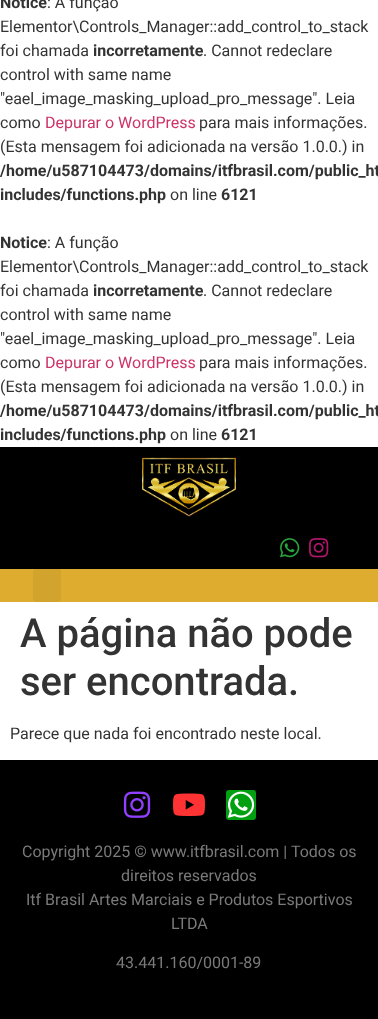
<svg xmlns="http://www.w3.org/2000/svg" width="378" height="1019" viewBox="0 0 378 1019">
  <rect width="100%" height="100%" fill="rgb(255,255,255)"/>
  <text x="0" y="8" font-family="Roboto" font-size="16" font-weight="bold" fill="rgb(51,51,51)">Notice</text>
  <g font-family="Roboto" font-size="16" fill="rgb(51,51,51)">
    <text x="47" y="8">: A função</text>
    <text>
      <tspan x="0" y="32">Elementor\Controls_Manager::add_control_to_stack</tspan>
      <tspan x="0" y="56">foi chamada</tspan>
    </text>
  </g>
  <text x="93" y="56" font-family="Roboto" font-size="16" font-weight="bold" fill="rgb(51,51,51)">incorretamente</text>
  <g font-family="Roboto" font-size="16" fill="rgb(51,51,51)">
    <text x="203" y="56">. Cannot redeclare</text>
    <text>
      <tspan x="0" y="80">control with same name</tspan>
      <tspan x="0" y="104">"eael_image_masking_upload_pro_message". Leia</tspan>
      <tspan x="0" y="128">como</tspan>
    </text>
  </g>
  <text x="45" y="128" font-family="Roboto" font-size="16" fill="rgb(204,51,102)">Depurar o WordPress</text>
  <g font-family="Roboto" font-size="16" fill="rgb(51,51,51)">
    <text x="199" y="128">para mais informações.</text>
    <text x="0" y="152">(Esta mensagem foi adicionada na versão 1.0.0.) in</text>
  </g>
  <g font-family="Roboto" font-size="16" font-weight="bold" fill="rgb(51,51,51)">
    <text>
      <tspan x="0" y="176">/home/u587104473/domains/itfbrasil.com/public_ht</tspan>
      <tspan x="0" y="200">includes/functions.php</tspan>
    </text>
  </g>
  <text x="170" y="200" font-family="Roboto" font-size="16" fill="rgb(51,51,51)">on line</text>
  <g font-family="Roboto" font-size="16" font-weight="bold" fill="rgb(51,51,51)">
    <text x="221" y="200">6121</text>
    <text x="0" y="248">Notice</text>
  </g>
  <g font-family="Roboto" font-size="16" fill="rgb(51,51,51)">
    <text x="47" y="248">: A função</text>
    <text>
      <tspan x="0" y="272">Elementor\Controls_Manager::add_control_to_stack</tspan>
      <tspan x="0" y="296">foi chamada</tspan>
    </text>
  </g>
  <text x="93" y="296" font-family="Roboto" font-size="16" font-weight="bold" fill="rgb(51,51,51)">incorretamente</text>
  <g font-family="Roboto" font-size="16" fill="rgb(51,51,51)">
    <text x="203" y="296">. Cannot redeclare</text>
    <text>
      <tspan x="0" y="320">control with same name</tspan>
      <tspan x="0" y="344">"eael_image_masking_upload_pro_message". Leia</tspan>
      <tspan x="0" y="368">como</tspan>
    </text>
  </g>
  <text x="45" y="368" font-family="Roboto" font-size="16" fill="rgb(204,51,102)">Depurar o WordPress</text>
  <g font-family="Roboto" font-size="16" fill="rgb(51,51,51)">
    <text x="199" y="368">para mais informações.</text>
    <text x="0" y="392">(Esta mensagem foi adicionada na versão 1.0.0.) in</text>
  </g>
  <g font-family="Roboto" font-size="16" font-weight="bold" fill="rgb(51,51,51)">
    <text>
      <tspan x="0" y="416">/home/u587104473/domains/itfbrasil.com/public_ht</tspan>
      <tspan x="0" y="440">includes/functions.php</tspan>
    </text>
  </g>
  <text x="170" y="440" font-family="Roboto" font-size="16" fill="rgb(51,51,51)">on line</text>
  <text x="221" y="440" font-family="Roboto" font-size="16" font-weight="bold" fill="rgb(51,51,51)">6121</text>
  <rect x="0" y="447" width="378" height="122" fill="rgb(0,0,0)"/>
  <image x="142" y="457" width="94" height="60" href="pic1.png"/>
  <image x="280" y="538" width="20" height="20" href="pic2.png"/>
  <image x="309" y="538" width="20" height="20" href="pic3.png"/>
  <rect x="0" y="569" width="378" height="33" fill="rgb(222,173,47)"/>
  <rect x="33" y="569" width="28" height="33" rx="3" fill="rgb(211,164,45)"/>
  <g font-family="Roboto" font-size="40" font-weight="500" fill="rgb(51,51,51)">
    <text>
      <tspan x="20" y="647">A página não pode</tspan>
      <tspan x="20" y="695">ser encontrada.</tspan>
    </text>
  </g>
  <text x="10" y="739" font-family="Roboto" font-size="16" fill="rgb(51,51,51)">Parece que nada foi encontrado neste local.</text>
  <rect x="0" y="760" width="378" height="259" fill="rgb(0,0,0)"/>
  <image x="123" y="791" width="28" height="27" href="pic4.png"/>
  <image x="173" y="793" width="32" height="23" href="pic5.png"/>
  <rect x="226" y="790" width="30" height="30" rx="3" fill="rgb(0,160,16)"/>
  <image x="227" y="791" width="28" height="27" href="pic6.png"/>
  <g font-family="Roboto" font-size="16" fill="rgb(122,122,122)">
    <text x="22" y="857">Copyright 2025 © www.itfbrasil.com | Todos os</text>
    <text x="121" y="881">direitos reservados</text>
    <text x="26" y="905">Itf Brasil Artes Marciais e Produtos Esportivos</text>
    <text x="171" y="929">LTDA</text>
    <text x="116" y="968">43.441.160/0001-89</text>
  </g>
</svg>
